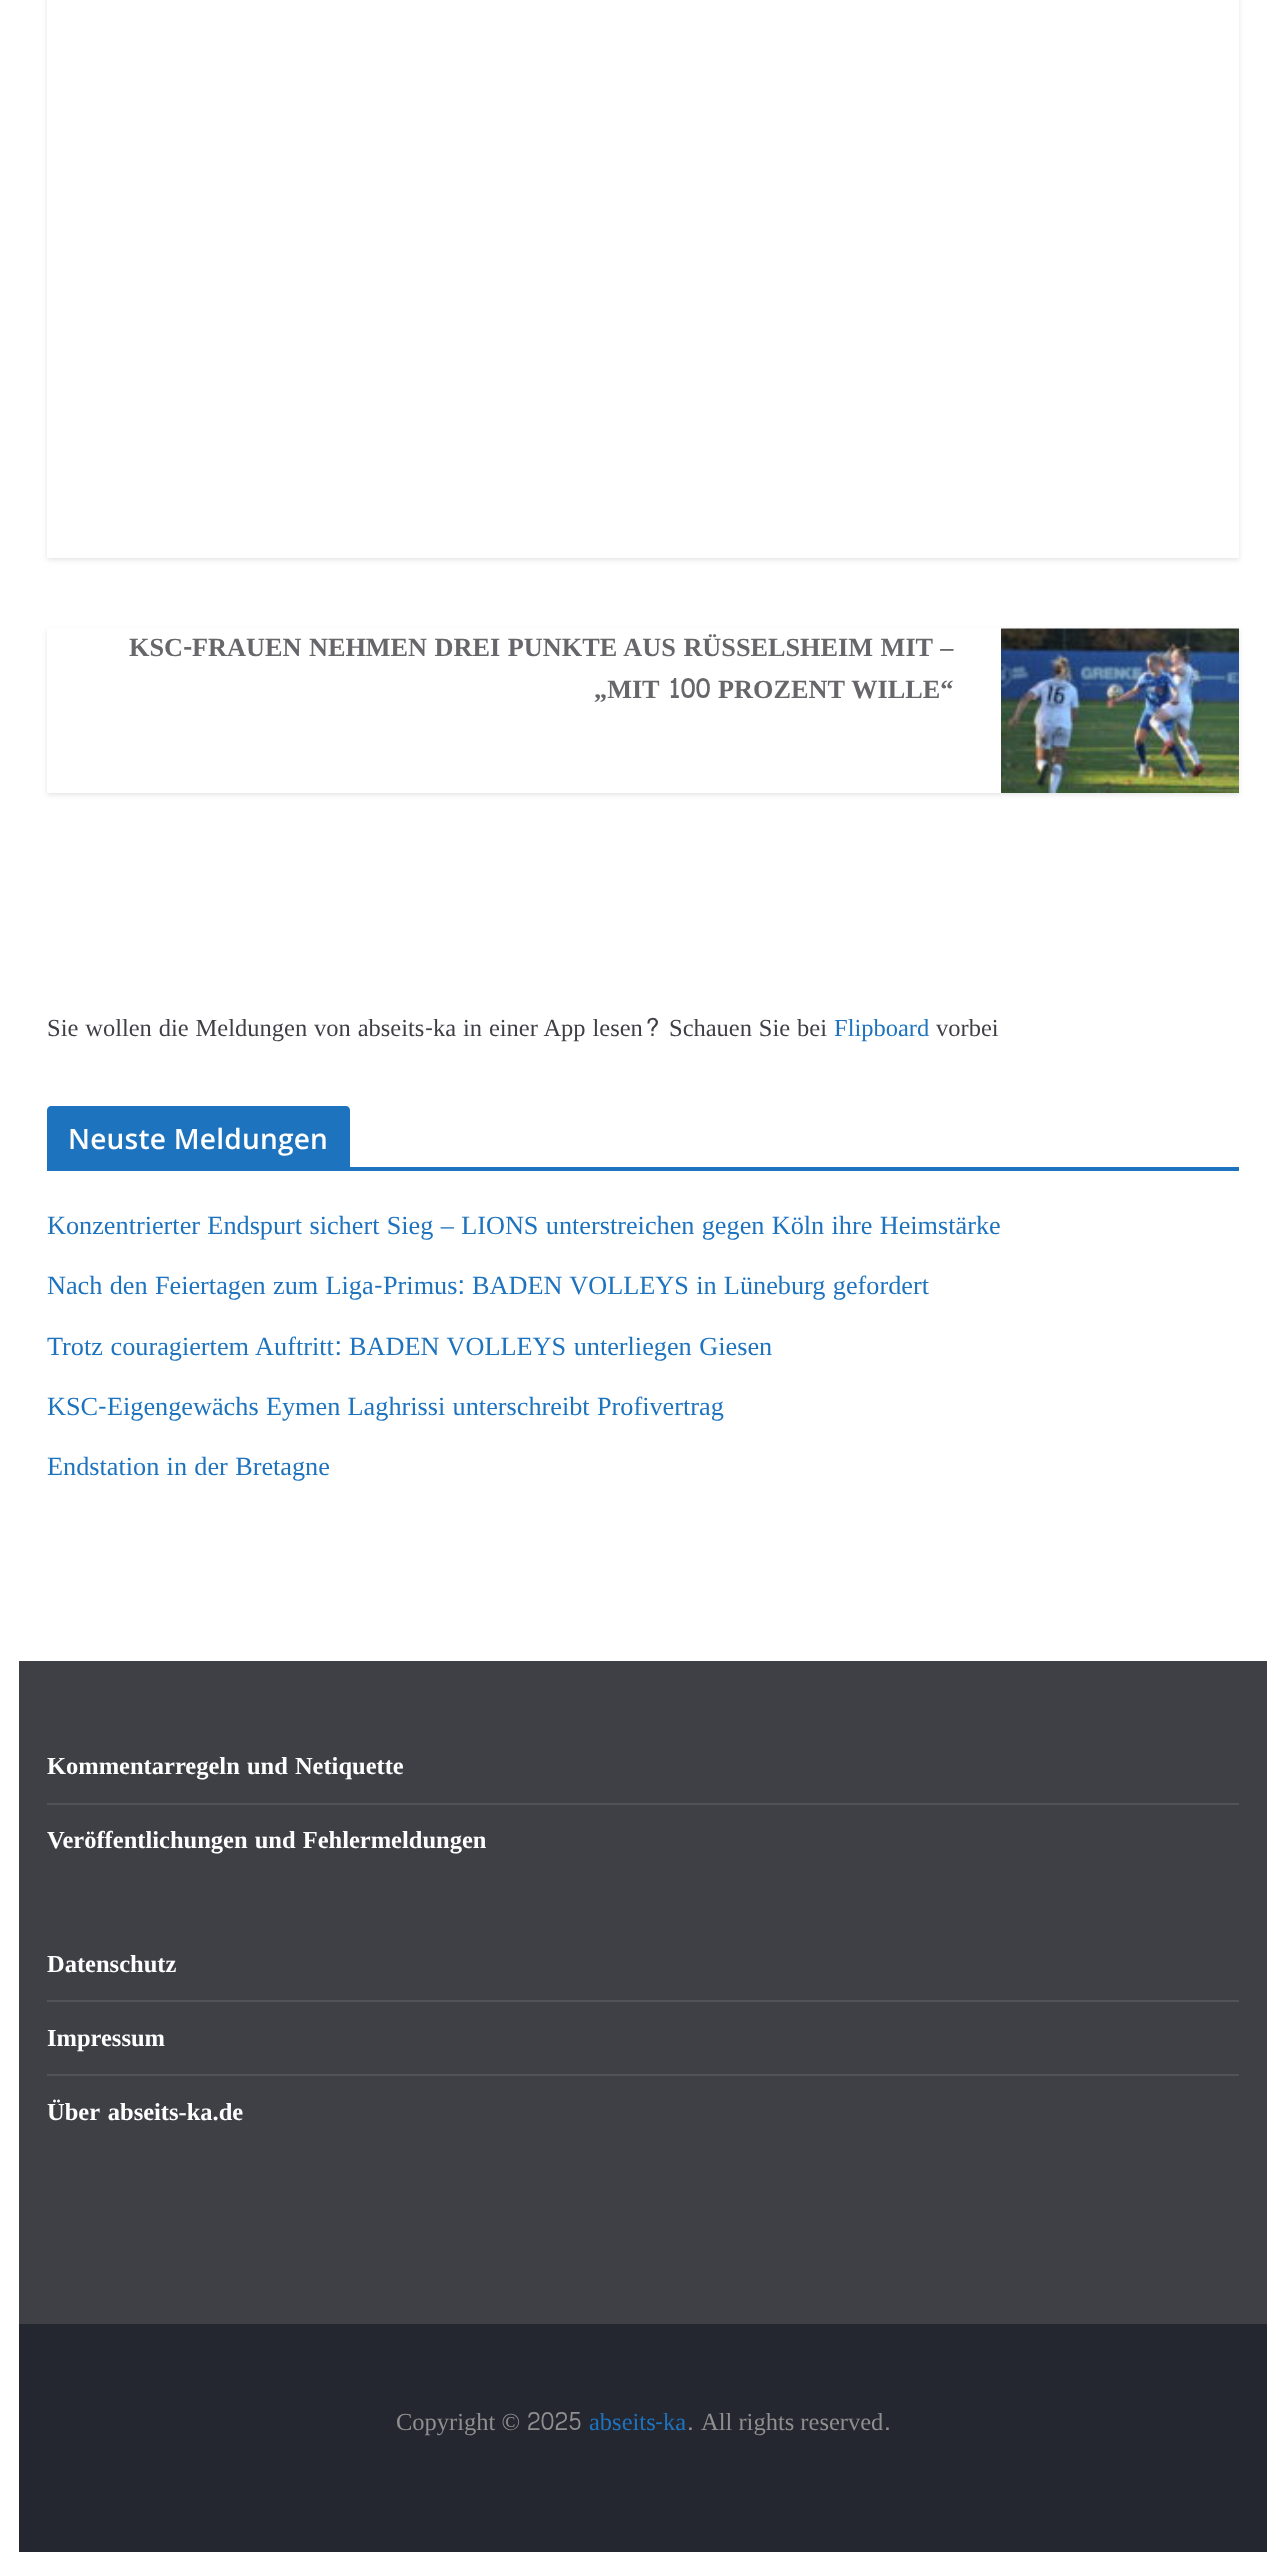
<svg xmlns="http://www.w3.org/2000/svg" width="1286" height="2568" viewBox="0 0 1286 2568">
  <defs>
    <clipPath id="clip1"><path d="M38 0H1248V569H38ZM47-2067H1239V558H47Z" clip-rule="evenodd"/></clipPath>
    <clipPath id="clip2"><path d="M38 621H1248V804H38ZM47 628H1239V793H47Z" clip-rule="evenodd"/></clipPath>
  </defs>
  <rect width="100%" height="100%" fill="rgb(255,255,255)"/>
  <g clip-path="url(#clip1)">
    <rect x="47" y="-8" width="1192" height="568" fill="rgba(0,0,0,0.1)" filter="blur(2.5px)"/>
  </g>
  <g clip-path="url(#clip2)">
    <rect x="47" y="630" width="1192" height="165" fill="rgba(0,0,0,0.1)" filter="blur(2.5px)"/>
  </g>
  <text x="129" y="656" font-family="Liberation Serif" font-size="26.25" font-weight="bold" fill="rgb(103,102,106)">KSC</text>
  <text x="183" y="656" font-family="Content" font-size="26.25" font-weight="bold" fill="rgb(103,102,106)">-</text>
  <g font-family="Liberation Serif" font-size="26.25" font-weight="bold" fill="rgb(103,102,106)">
    <text x="192" y="656" word-spacing="1">FRAUEN NEHMEN DREI PUNKTE AUS RÜSSELSHEIM MIT –</text>
    <text x="594" y="698">„MIT</text>
  </g>
  <text x="668" y="698" font-family="Content" font-size="26.25" font-weight="bold" fill="rgb(103,102,106)">100</text>
  <text x="718" y="698" word-spacing="0.75" font-family="Liberation Serif" font-size="26.25" font-weight="bold" fill="rgb(103,102,106)">PROZENT WILLE“</text>
  <image x="1001" y="628" width="238" height="165" href="pic1.png"/>
  <text x="47" y="1036" word-spacing="0.75" font-family="Liberation Serif" font-size="24.5" fill="rgb(63,63,70)">Sie wollen die Meldungen von abseits</text>
  <text x="425" y="1036" font-family="Content" font-size="24.5" fill="rgb(63,63,70)">-</text>
  <text x="433" y="1036" word-spacing="0.75" font-family="Liberation Serif" font-size="24.5" fill="rgb(63,63,70)">ka in einer App lesen</text>
  <text x="642" y="1036" font-family="Content" font-size="24.5" fill="rgb(63,63,70)">?</text>
  <text x="669" y="1036" word-spacing="0.75" font-family="Liberation Serif" font-size="24.5" fill="rgb(63,63,70)">Schauen Sie bei</text>
  <text x="834" y="1036" font-family="Liberation Serif" font-size="24.5" fill="rgb(30,115,190)">Flipboard</text>
  <text x="936" y="1036" font-family="Liberation Serif" font-size="24.5" fill="rgb(63,63,70)">vorbei</text>
  <rect x="47" y="1167" width="1192" height="4" fill="rgb(30,115,190)"/>
  <path d="M51 1106H346C348 1106 350 1108 350 1110V1167H47V1110C47 1108 49 1106 51 1106Z" fill="rgb(30,115,190)"/>
  <text x="68" y="1149" font-family="Open Sans" font-size="28" font-weight="600" letter-spacing="0.25" fill="rgb(255,255,255)">Neuste Meldungen</text>
  <g font-family="Liberation Serif" font-size="26.25" fill="rgb(30,115,190)">
    <text x="47" y="1234" word-spacing="0.75">Konzentrierter Endspurt sichert Sieg – LIONS unterstreichen gegen Köln ihre Heimstärke</text>
    <text x="47" y="1294" word-spacing="0.75">Nach den Feiertagen zum Liga</text>
  </g>
  <text x="374" y="1294" font-family="Content" font-size="26.25" fill="rgb(30,115,190)">-</text>
  <text x="383" y="1294" font-family="Liberation Serif" font-size="26.25" fill="rgb(30,115,190)">Primus</text>
  <text x="457" y="1294" font-family="Content" font-size="26.25" fill="rgb(30,115,190)">:</text>
  <g font-family="Liberation Serif" font-size="26.25" fill="rgb(30,115,190)">
    <text x="472" y="1294" word-spacing="0.75">BADEN VOLLEYS in Lüneburg gefordert</text>
    <text x="47" y="1355" word-spacing="1">Trotz couragiertem Auftritt</text>
  </g>
  <text x="334" y="1355" font-family="Content" font-size="26.25" fill="rgb(30,115,190)">:</text>
  <g font-family="Liberation Serif" font-size="26.25" fill="rgb(30,115,190)">
    <text x="349" y="1355" word-spacing="1">BADEN VOLLEYS unterliegen Giesen</text>
    <text x="47" y="1415">KSC</text>
  </g>
  <text x="98" y="1415" font-family="Content" font-size="26.25" fill="rgb(30,115,190)">-</text>
  <g font-family="Liberation Serif" font-size="26.25" fill="rgb(30,115,190)">
    <text x="107" y="1415" word-spacing="0.75">Eigengewächs Eymen Laghrissi unterschreibt Profivertrag</text>
    <text x="47" y="1475" word-spacing="0.75">Endstation in der Bretagne</text>
  </g>
  <rect x="19" y="1661" width="1248" height="663" fill="rgb(63,63,70)"/>
  <rect x="47" y="1803" width="1192" height="2" fill="rgb(82,82,91)"/>
  <g font-family="Liberation Serif" font-size="24.5" font-weight="bold" fill="rgb(255,255,255)">
    <text x="47" y="1774" word-spacing="1">Kommentarregeln und Netiquette</text>
    <text x="47" y="1848" word-spacing="1">Veröffentlichungen und Fehlermeldungen</text>
  </g>
  <rect x="47" y="2000" width="1192" height="2" fill="rgb(82,82,91)"/>
  <text x="47" y="1972" font-family="Liberation Serif" font-size="24.5" font-weight="bold" fill="rgb(255,255,255)">Datenschutz</text>
  <rect x="47" y="2074" width="1192" height="2" fill="rgb(82,82,91)"/>
  <g font-family="Liberation Serif" font-size="24.5" font-weight="bold" fill="rgb(255,255,255)">
    <text x="47" y="2046">Impressum</text>
    <text x="47" y="2120" word-spacing="2">Über abseits-ka.de</text>
  </g>
  <rect x="19" y="2324" width="1248" height="228" fill="rgb(37,39,48)"/>
  <text x="396" y="2430" font-family="Liberation Serif" font-size="24.5" fill="rgb(143,143,143)">Copyright ©</text>
  <text x="527" y="2430" font-family="Content" font-size="24.5" fill="rgb(143,143,143)">2025</text>
  <text x="589" y="2430" font-family="Liberation Serif" font-size="24.5" fill="rgb(30,115,190)">abseits</text>
  <text x="655" y="2430" font-family="Content" font-size="24.5" fill="rgb(30,115,190)">-</text>
  <text x="663" y="2430" font-family="Liberation Serif" font-size="24.5" fill="rgb(30,115,190)">ka</text>
  <text x="701" y="2430" font-family="Liberation Serif" font-size="24.5" fill="rgb(143,143,143)">All rights reserved</text>
  <g font-family="Content" font-size="24.5" fill="rgb(143,143,143)">
    <text x="687" y="2430">.</text>
    <text x="884" y="2430">.</text>
  </g>
</svg>
